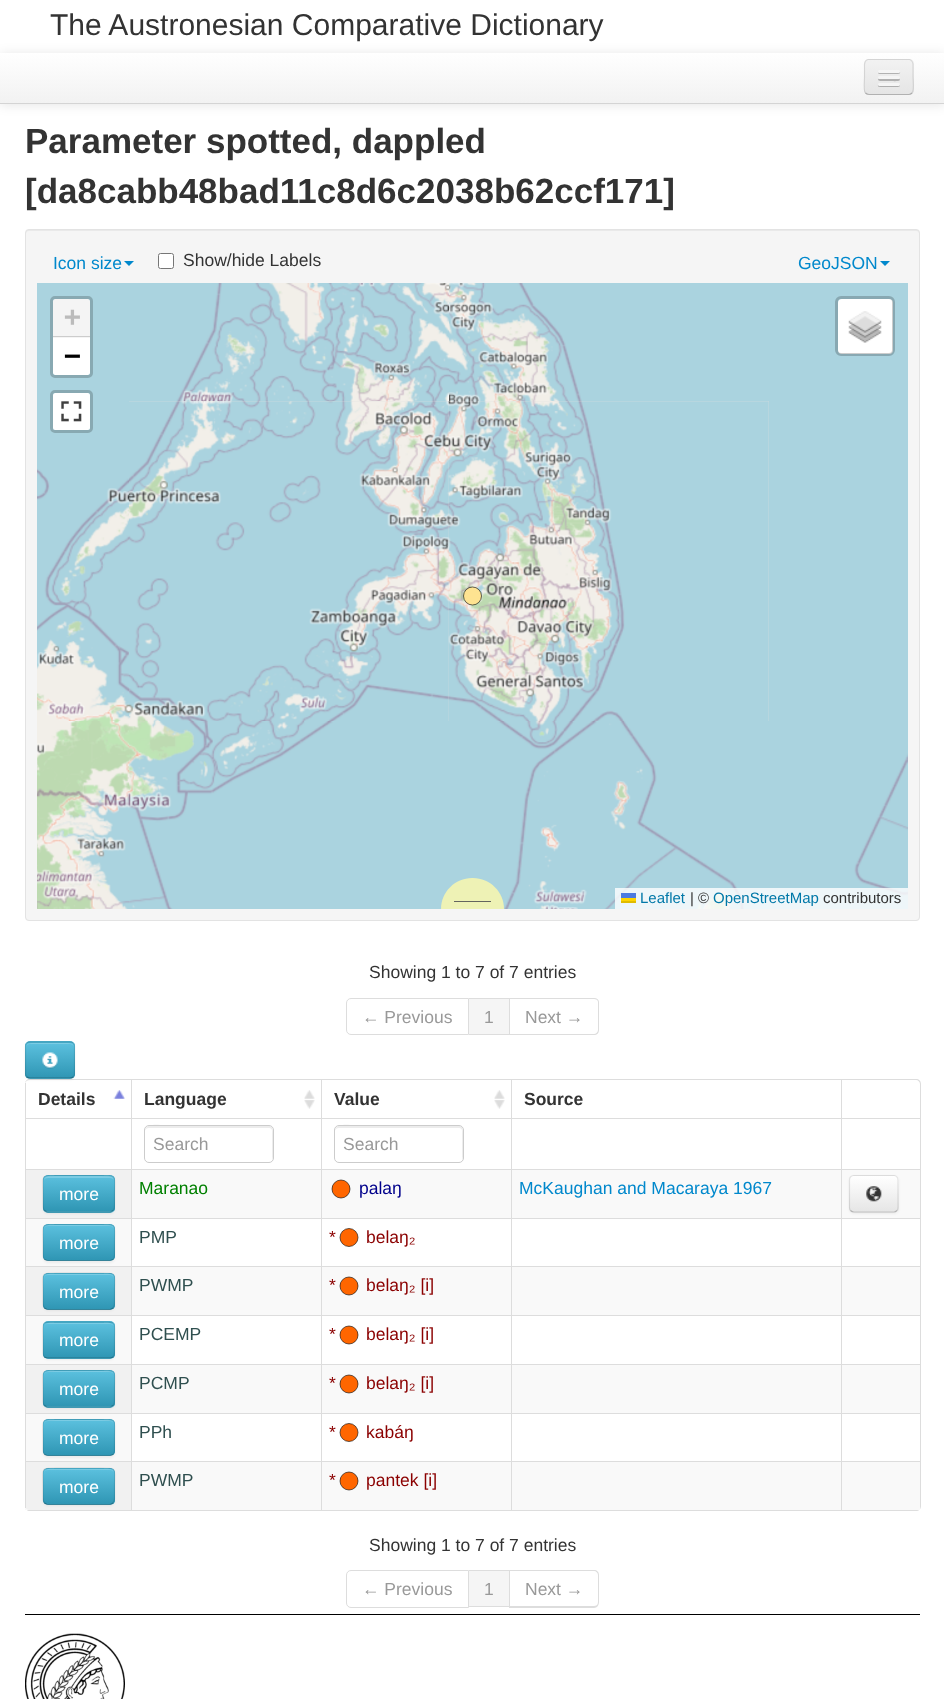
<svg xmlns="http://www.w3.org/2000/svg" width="944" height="1699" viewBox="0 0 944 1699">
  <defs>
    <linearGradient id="g1" gradientUnits="userSpaceOnUse" x1="473" y1="52" x2="473" y2="103"><stop offset="0" stop-color="rgb(255,255,255)"/><stop offset="1" stop-color="rgb(242,242,242)"/></linearGradient>
    <clipPath id="clip1"><rect x="864" y="59" width="50" height="36" rx="5"/></clipPath>
    <linearGradient id="g2" gradientUnits="userSpaceOnUse" x1="889" y1="60" x2="889" y2="94"><stop offset="0" stop-color="rgb(242,242,242)"/><stop offset="1" stop-color="rgb(229,229,229)"/></linearGradient>
    <clipPath id="clip2"><rect x="25" y="1041" width="50" height="38" rx="5"/></clipPath>
    <linearGradient id="g3" gradientUnits="userSpaceOnUse" x1="50" y1="1043" x2="50" y2="1078"><stop offset="0" stop-color="rgb(91,192,222)"/><stop offset="1" stop-color="rgb(47,150,180)"/></linearGradient>
    <clipPath id="clip3"><rect x="43" y="1175" width="72" height="38" rx="5"/></clipPath>
    <linearGradient id="g4" gradientUnits="userSpaceOnUse" x1="79" y1="1176" x2="79" y2="1211"><stop offset="0" stop-color="rgb(91,192,222)"/><stop offset="1" stop-color="rgb(47,150,180)"/></linearGradient>
    <clipPath id="clip4"><rect x="849" y="1175" width="50" height="38" rx="5"/></clipPath>
    <linearGradient id="g5" gradientUnits="userSpaceOnUse" x1="874" y1="1176" x2="874" y2="1211"><stop offset="0" stop-color="rgb(255,255,255)"/><stop offset="1" stop-color="rgb(230,230,230)"/></linearGradient>
    <clipPath id="clip5"><rect x="43" y="1224" width="72" height="37" rx="5"/></clipPath>
    <linearGradient id="g6" gradientUnits="userSpaceOnUse" x1="79" y1="1225" x2="79" y2="1260"><stop offset="0" stop-color="rgb(91,192,222)"/><stop offset="1" stop-color="rgb(47,150,180)"/></linearGradient>
    <clipPath id="clip6"><rect x="43" y="1273" width="72" height="37" rx="5"/></clipPath>
    <linearGradient id="g7" gradientUnits="userSpaceOnUse" x1="79" y1="1274" x2="79" y2="1309"><stop offset="0" stop-color="rgb(91,192,222)"/><stop offset="1" stop-color="rgb(47,150,180)"/></linearGradient>
    <clipPath id="clip7"><rect x="43" y="1321" width="72" height="38" rx="5"/></clipPath>
    <linearGradient id="g8" gradientUnits="userSpaceOnUse" x1="79" y1="1323" x2="79" y2="1358"><stop offset="0" stop-color="rgb(91,192,222)"/><stop offset="1" stop-color="rgb(47,150,180)"/></linearGradient>
    <clipPath id="clip8"><rect x="43" y="1370" width="72" height="38" rx="5"/></clipPath>
    <linearGradient id="g9" gradientUnits="userSpaceOnUse" x1="79" y1="1371" x2="79" y2="1406"><stop offset="0" stop-color="rgb(91,192,222)"/><stop offset="1" stop-color="rgb(47,150,180)"/></linearGradient>
    <clipPath id="clip9"><rect x="43" y="1419" width="72" height="37" rx="5"/></clipPath>
    <linearGradient id="g10" gradientUnits="userSpaceOnUse" x1="79" y1="1420" x2="79" y2="1455"><stop offset="0" stop-color="rgb(91,192,222)"/><stop offset="1" stop-color="rgb(47,150,180)"/></linearGradient>
    <clipPath id="clip10"><rect x="43" y="1468" width="72" height="37" rx="5"/></clipPath>
    <linearGradient id="g11" gradientUnits="userSpaceOnUse" x1="79" y1="1469" x2="79" y2="1504"><stop offset="0" stop-color="rgb(91,192,222)"/><stop offset="1" stop-color="rgb(47,150,180)"/></linearGradient>
  </defs>
  <rect width="100%" height="100%" fill="rgb(255,255,255)"/>
  <rect x="0" y="54" width="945" height="51" fill="rgba(0,0,0,0.1)" filter="blur(6px)"/>
  <text x="50" y="35" font-family="Liberation Sans" font-size="30" fill="rgb(51,51,51)">The Austronesian Comparative Dictionary</text>
  <rect x="0" y="53" width="944" height="50" fill="url(#g1)"/>
  <rect x="0" y="103" width="944" height="1" fill="rgb(212,212,212)"/>
  <rect x="864" y="59" width="50" height="36" rx="5" fill="rgb(237,237,237)"/>
  <g clip-path="url(#clip1)">
    <rect x="864" y="60" width="50" height="34" fill="url(#g2)"/>
  </g>
  <path d="M912 93C911 94 910 94.5 909 94.5H869C867.5 94.5 866.5 94 865.5 93" fill="none" stroke="rgba(0,0,0,0.25)" stroke-width="1.2"/>
  <path d="M865.5 93C863 90.5 864.5 80 864.5 77V68C864.5 65 863.5 60.5 868 59.5H909.5C914 60.5 913 65 913 68V77C913 80 914.5 90.5 912 93" fill="none" stroke="rgba(0,0,0,0.1)" stroke-width="1.2"/>
  <path d="M878 72.5C877.5 74.5 881.5 74 882.5 74H895.5C896 74 901 74.5 900 72L899 72.5C897 72.5 878.5 72.5 878 72.5Z" fill="rgb(178,178,178)"/>
  <rect x="878" y="70" width="22" height="3" rx="1.5" fill="rgb(245,245,245)"/>
  <path d="M878.5 78.5C876.5 81.5 882 81 882.5 81H889C891 81 899 81.5 899.5 80.5C900 79.5 900 79 899.5 78.5C899 79 879.5 79 878.5 78.5Z" fill="rgb(176,176,176)"/>
  <rect x="878" y="76" width="22" height="3" rx="1.5" fill="rgb(245,245,245)"/>
  <path d="M878 85C877 87.5 882 87 882.5 87H895.5C895.5 87 902 87.5 899.5 84.5L899 85Z" fill="rgb(174,174,174)"/>
  <rect x="878" y="83" width="22" height="3" rx="1.5" fill="rgb(245,245,245)"/>
  <g font-family="Liberation Sans" font-size="35" font-weight="bold" fill="rgb(51,51,51)">
    <text>
      <tspan x="25" y="153">Parameter spotted, dappled</tspan>
      <tspan x="25" y="203">[da8cabb48bad11c8d6c2038b62ccf171]</tspan>
    </text>
  </g>
  <rect x="25" y="229" width="895" height="692" rx="4" fill="rgb(245,245,245)"/>
  <path d="M29 231H916C918 231 919 232 919 234C919 232 919 230 916 230H28C26 230 26 232 26 234C26 232 27 231 29 231Z" fill="rgb(233,233,233)"/>
  <rect x="25.5" y="229.5" width="894" height="691" rx="3.5" fill="none" stroke="rgb(227,227,227)"/>
  <text x="53" y="269" font-family="Liberation Sans" font-size="17.5" fill="rgb(0,136,204)">Icon size</text>
  <path d="M124 261H134L129 266Z" fill="rgb(0,136,204)"/>
  <rect x="158.5" y="253.5" width="15" height="15" rx="2" fill="rgb(255,255,255)" stroke="rgb(118,118,118)"/>
  <text x="183" y="266" font-family="Liberation Sans" font-size="17.5" fill="rgb(51,51,51)">Show/hide Labels</text>
  <text x="798" y="269" font-family="Liberation Sans" font-size="17.5" fill="rgb(0,136,204)">GeoJSON</text>
  <path d="M880 261H890L885 266Z" fill="rgb(0,136,204)"/>
  <rect x="129" y="401" width="640" height="320" fill="rgb(221,221,221)"/>
  <rect x="37" y="283" width="92" height="118" fill="rgb(170,211,223)"/>
  <image x="129" y="283" width="320" height="118" href="pic1.png"/>
  <image x="449" y="283" width="320" height="118" href="pic2.png"/>
  <rect x="769" y="283" width="139" height="438" fill="rgb(170,211,223)"/>
  <image x="37" y="401" width="92" height="320" href="pic3.png"/>
  <image x="129" y="401" width="320" height="320" href="pic4.png"/>
  <image x="448" y="401" width="321" height="320" href="pic5.png"/>
  <image x="37" y="721" width="92" height="188" href="pic6.png"/>
  <image x="129" y="721" width="320" height="188" href="pic7.png"/>
  <image x="449" y="721" width="320" height="188" href="pic8.png"/>
  <image x="769" y="721" width="139" height="188" href="pic9.png"/>
  <circle cx="472.5" cy="596" r="9" fill="rgb(254,227,145)" stroke="rgb(0,0,0)" stroke-width="0.6"/>
  <rect x="51.5" y="297.5" width="40" height="79" rx="3.5" fill="none" stroke="rgb(136,169,178)" stroke-width="3"/>
  <path d="M55.5 299H87.5C89 299 90 300 90 301.5V338H53V301.5C53 300 54 299 55.5 299Z" fill="rgb(244,244,244)"/>
  <rect x="53" y="336" width="37" height="1" fill="rgb(204,204,204)"/>
  <text x="64" y="326" font-family="DejaVu Sans Mono" font-size="28" font-weight="bold" fill="rgb(187,187,187)">+</text>
  <path d="M53 338H90V372.5C90 374 89 375 87.5 375H55.5C54 375 53 374 53 372.5Z" fill="rgb(255,255,255)"/>
  <text x="64" y="365" font-family="DejaVu Sans Mono" font-size="28" font-weight="bold" fill="rgb(0,0,0)">−</text>
  <rect x="51.5" y="391.5" width="40" height="40" rx="3.5" fill="none" stroke="rgb(136,169,178)" stroke-width="3"/>
  <rect x="53" y="393" width="37" height="37" rx="2.5" fill="rgb(255,255,255)"/>
  <image x="61" y="401" width="21" height="21" href="pic10.png"/>
  <rect x="838" y="299" width="55" height="55" rx="4" fill="rgb(255,255,255)"/>
  <rect x="836.5" y="297.5" width="57" height="57" rx="4.5" fill="none" stroke="rgba(0,0,0,0.2)" stroke-width="3"/>
  <image x="848" y="311" width="34" height="32" href="pic11.png"/>
  <path d="M472 878H473C490 878 504 892 504 909H441C441 892 455 878 472 878Z" fill="rgb(238,242,181)"/>
  <rect x="454" y="901" width="37" height="1" fill="rgb(100,101,95)"/>
  <rect x="615" y="888" width="293" height="21" fill="rgba(255,255,255,0.8)"/>
  <text x="640" y="903" font-family="Liberation Sans" font-size="15" fill="rgb(0,120,168)">Leaflet</text>
  <rect x="621" y="893" width="15" height="5" fill="rgb(76,123,225)"/>
  <rect x="621" y="898" width="15" height="3" fill="rgb(255,213,0)"/>
  <rect x="621" y="901" width="15" height="2" fill="rgb(224,188,0)"/>
  <text x="690" y="903" font-family="Liberation Sans" font-size="15" fill="rgb(51,51,51)">| ©</text>
  <text x="713" y="903" font-family="Liberation Sans" font-size="15" fill="rgb(0,120,168)">OpenStreetMap</text>
  <text x="823" y="903" font-family="Liberation Sans" font-size="15" fill="rgb(51,51,51)">contributors</text>
  <text x="369" y="978" font-family="Liberation Sans" font-size="17.5" fill="rgb(51,51,51)">Showing 1 to 7 of 7 entries</text>
  <path d="M351 998.5H468.5V1034.5H351C348.5 1034.5 346.5 1032.5 346.5 1030V1003C346.5 1000.5 348.5 998.5 351 998.5Z" fill="none" stroke="rgb(221,221,221)"/>
  <text x="362" y="1023" font-family="Liberation Sans" font-size="17.5" fill="rgb(153,153,153)">← Previous</text>
  <rect x="469" y="999" width="40" height="35" fill="rgb(245,245,245)"/>
  <rect x="469" y="998" width="41" height="1" fill="rgb(221,221,221)"/>
  <rect x="509" y="998" width="1" height="37" fill="rgb(221,221,221)"/>
  <rect x="469" y="1034" width="41" height="1" fill="rgb(221,221,221)"/>
  <text x="484" y="1023" font-family="Liberation Sans" font-size="17.5" fill="rgb(153,153,153)">1</text>
  <path d="M510 998H594C597 998 599 1000 599 1002V1030C599 1033 597 1035 594 1035H510ZM510 999H594C596 999 598 1000 598 1002V1030C598 1032 596 1034 594 1034H510Z" fill="rgb(221,221,221)" fill-rule="evenodd"/>
  <text x="525" y="1023" font-family="Liberation Sans" font-size="17.5" fill="rgb(153,153,153)">Next →</text>
  <path d="M30 1079H916C919 1079 921 1081 921 1084V1506C921 1509 919 1511 916 1511H30C27 1511 25 1509 25 1506V1084C25 1081 27 1079 30 1079ZM30 1080H916C918 1080 920 1082 920 1084V1506C920 1508 918 1510 916 1510H30C27 1510 25 1508 25 1506V1084C25 1082 27 1080 30 1080Z" fill="rgb(221,221,221)" fill-rule="evenodd"/>
  <rect x="25" y="1083" width="1" height="35" fill="rgb(221,221,221)"/>
  <rect x="25" y="1043" width="50" height="37" rx="5" fill="rgba(0,0,0,0.05)" filter="blur(1px)"/>
  <rect x="25" y="1041" width="50" height="38" rx="5" fill="rgb(73,175,205)"/>
  <g clip-path="url(#clip2)">
    <rect x="25" y="1043" width="50" height="35" fill="url(#g3)"/>
  </g>
  <path d="M30 1044H70C72 1044 74 1045 74 1048C74 1042 68 1043 63 1043H37C32 1043 26 1042 26 1048C26 1045 28 1044 30 1044Z" fill="rgb(123,204,228)"/>
  <path d="M73 1077C72.5 1077.5 71 1078 70 1078H30C29 1078 27.5 1077.5 27 1077" fill="none" stroke="rgba(0,0,0,0.25)" stroke-width="1.2"/>
  <path d="M27 1077C26 1076 25.5 1075 25.5 1074V1046C25.5 1045 26 1044 27 1043C27.5 1042.5 29 1042 30 1042H70C71 1042 72.5 1042.5 73 1043C74 1044 74.5 1045 74.5 1046V1074C74.5 1075 74 1076 73 1077" fill="none" stroke="rgba(0,0,0,0.1)" stroke-width="1.2"/>
  <image x="42" y="1052" width="16" height="17" href="pic12.png"/>
  <image x="113" y="1090" width="12" height="9" href="pic13.png"/>
  <text x="38" y="1105" font-family="Liberation Sans" font-size="17.5" font-weight="bold" fill="rgb(51,51,51)">Details</text>
  <image x="304" y="1090" width="11" height="19" href="pic14.png"/>
  <rect x="131" y="1080" width="1" height="38" fill="rgb(221,221,221)"/>
  <text x="144" y="1105" font-family="Liberation Sans" font-size="17.5" font-weight="bold" fill="rgb(51,51,51)">Language</text>
  <image x="494" y="1090" width="11" height="19" href="pic14.png"/>
  <rect x="321" y="1080" width="1" height="38" fill="rgb(221,221,221)"/>
  <text x="334" y="1105" font-family="Liberation Sans" font-size="17.5" font-weight="bold" fill="rgb(51,51,51)">Value</text>
  <rect x="511" y="1080" width="1" height="38" fill="rgb(221,221,221)"/>
  <text x="524" y="1105" font-family="Liberation Sans" font-size="17.5" font-weight="bold" fill="rgb(51,51,51)">Source</text>
  <rect x="841" y="1080" width="1" height="38" fill="rgb(221,221,221)"/>
  <rect x="25" y="1118" width="895" height="1" fill="rgb(221,221,221)"/>
  <rect x="25" y="1118" width="1" height="51" fill="rgb(221,221,221)"/>
  <rect x="131" y="1118" width="1" height="51" fill="rgb(221,221,221)"/>
  <path d="M149 1128H269C271 1128 272 1129 272 1131V1160C274 1157 273 1147 273 1144C273 1121 275 1126 249 1126H169C167 1126 145 1121 145 1131C145 1129 147 1128 149 1128Z" fill="rgb(236,236,236)"/>
  <rect x="144.5" y="1125.5" width="129" height="37" rx="4.5" fill="none" stroke="rgb(204,204,204)"/>
  <text x="153" y="1150" font-family="Liberation Sans" font-size="17.5" fill="rgb(153,153,153)">Search</text>
  <rect x="321" y="1118" width="1" height="51" fill="rgb(221,221,221)"/>
  <path d="M339 1128H459C461 1128 462 1129 462 1131V1160C464 1157 463 1147 463 1144C463 1121 465 1126 439 1126H359C357 1126 335 1121 335 1131C335 1129 337 1128 339 1128Z" fill="rgb(236,236,236)"/>
  <rect x="334.5" y="1125.5" width="129" height="37" rx="4.5" fill="none" stroke="rgb(204,204,204)"/>
  <text x="343" y="1150" font-family="Liberation Sans" font-size="17.5" fill="rgb(153,153,153)">Search</text>
  <rect x="511" y="1118" width="1" height="51" fill="rgb(221,221,221)"/>
  <rect x="841" y="1118" width="1" height="51" fill="rgb(221,221,221)"/>
  <rect x="132" y="1170" width="788" height="48" fill="rgb(249,249,249)"/>
  <rect x="26" y="1170" width="105" height="48" fill="rgb(241,241,241)"/>
  <rect x="25" y="1169" width="895" height="1" fill="rgb(221,221,221)"/>
  <rect x="25" y="1169" width="1" height="49" fill="rgb(221,221,221)"/>
  <rect x="43" y="1176" width="72" height="38" rx="5" fill="rgba(0,0,0,0.05)" filter="blur(1px)"/>
  <rect x="43" y="1175" width="72" height="38" rx="5" fill="rgb(73,175,205)"/>
  <g clip-path="url(#clip3)">
    <rect x="43" y="1176" width="72" height="35" fill="url(#g4)"/>
  </g>
  <path d="M48 1178H110C112 1178 114 1179 114 1181C114 1174 105 1176 100 1176H58C53 1176 44 1174 44 1181C44 1179 45 1178 48 1178Z" fill="rgb(123,203,227)"/>
  <path d="M113 1210.5L110.5 1212H47L44.5 1210.5" fill="none" stroke="rgba(0,0,0,0.25)" stroke-width="1.2"/>
  <path d="M44.5 1210.5C42.5 1208.5 43 1205.5 43 1203V1194C43 1175 39.5 1175.5 58 1175.5H99.5C118 1175.5 114.5 1175 114.5 1194V1203C114.5 1205.5 115 1208.5 113 1210.5" fill="none" stroke="rgba(0,0,0,0.1)" stroke-width="1.2"/>
  <text x="59" y="1200" font-family="Liberation Sans" font-size="17.5" fill="rgb(255,255,255)">more</text>
  <rect x="131" y="1169" width="1" height="49" fill="rgb(221,221,221)"/>
  <text x="139" y="1194" font-family="Liberation Sans" font-size="17.5" fill="rgb(0,128,0)">Maranao</text>
  <rect x="321" y="1169" width="1" height="49" fill="rgb(221,221,221)"/>
  <text x="359" y="1194" font-family="Liberation Sans" font-size="17.5" fill="rgb(0,0,139)">palaŋ</text>
  <circle cx="341" cy="1189" r="9" fill="rgb(255,102,0)" stroke="rgb(0,0,0)" stroke-width="0.6"/>
  <rect x="511" y="1169" width="1" height="49" fill="rgb(221,221,221)"/>
  <text x="519" y="1194" font-family="Liberation Sans" font-size="17.5" fill="rgb(0,136,204)">McKaughan and Macaraya 1967</text>
  <rect x="841" y="1169" width="1" height="49" fill="rgb(221,221,221)"/>
  <rect x="849" y="1176" width="50" height="38" rx="5" fill="rgba(0,0,0,0.05)" filter="blur(1px)"/>
  <rect x="849" y="1175" width="50" height="38" rx="5" fill="rgb(245,245,245)"/>
  <g clip-path="url(#clip4)">
    <rect x="849" y="1176" width="50" height="35" fill="url(#g5)"/>
  </g>
  <path d="M897 1210.5C896 1211.5 895 1212 894 1212H854C852.5 1212 851.5 1211.5 850.5 1210.5" fill="none" stroke="rgb(179,179,179)" stroke-width="1.2"/>
  <path d="M850.5 1210.5C850 1210 849.5 1208.5 849.5 1207.5V1180C849.5 1179 850 1177.5 850.5 1177C851.5 1176 852.5 1175.5 854 1175.5H894C895 1175.5 896 1176 897 1177C897.5 1177.5 898 1179 898 1180V1207.5C898 1208.5 897.5 1210 897 1210.5" fill="none" stroke="rgba(0,0,0,0.1)" stroke-width="1.2"/>
  <image x="866" y="1186" width="16" height="16" href="pic15.png"/>
  <rect x="26" y="1219" width="105" height="47" fill="rgb(249,249,249)"/>
  <rect x="25" y="1218" width="895" height="1" fill="rgb(221,221,221)"/>
  <rect x="25" y="1218" width="1" height="48" fill="rgb(221,221,221)"/>
  <rect x="25" y="1266" width="895" height="1" fill="rgb(221,221,221)"/>
  <rect x="43" y="1225" width="72" height="38" rx="5" fill="rgba(0,0,0,0.05)" filter="blur(1px)"/>
  <rect x="43" y="1224" width="72" height="37" rx="5" fill="rgb(73,175,205)"/>
  <g clip-path="url(#clip5)">
    <rect x="43" y="1225" width="72" height="35" fill="url(#g6)"/>
  </g>
  <path d="M48 1226H110C112 1226 114 1228 114 1230C114 1223 105 1225 100 1225H58C53 1225 44 1223 44 1230C44 1228 45 1226 48 1226Z" fill="rgb(123,204,228)"/>
  <path d="M113 1259.5L110.5 1260.5H47L44.5 1259.5" fill="none" stroke="rgba(0,0,0,0.25)" stroke-width="1.2"/>
  <path d="M44.5 1259.5C42.5 1257.5 43 1254 43 1251.5V1242.5C43 1224 39.5 1224.5 58 1224.5H99.5C118 1224.5 114.5 1224 114.5 1242.5V1251.5C114.5 1254 115 1257.5 113 1259.5" fill="none" stroke="rgba(0,0,0,0.1)" stroke-width="1.2"/>
  <text x="59" y="1249" font-family="Liberation Sans" font-size="17.5" fill="rgb(255,255,255)">more</text>
  <rect x="131" y="1218" width="1" height="48" fill="rgb(221,221,221)"/>
  <text x="139" y="1243" font-family="Liberation Sans" font-size="17.5" fill="rgb(47,79,79)">PMP</text>
  <rect x="321" y="1218" width="1" height="48" fill="rgb(221,221,221)"/>
  <g font-family="Liberation Sans" font-size="17.5" fill="rgb(139,0,0)">
    <text x="329" y="1243">*</text>
    <text x="366" y="1243">belaŋ₂</text>
  </g>
  <circle cx="349" cy="1237.5" r="9" fill="rgb(255,102,0)" stroke="rgb(0,0,0)" stroke-width="0.6"/>
  <rect x="511" y="1218" width="1" height="48" fill="rgb(221,221,221)"/>
  <rect x="841" y="1218" width="1" height="48" fill="rgb(221,221,221)"/>
  <rect x="132" y="1267" width="788" height="48" fill="rgb(249,249,249)"/>
  <rect x="26" y="1267" width="105" height="48" fill="rgb(241,241,241)"/>
  <rect x="25" y="1266" width="1" height="49" fill="rgb(221,221,221)"/>
  <rect x="43" y="1274" width="72" height="37" rx="5" fill="rgba(0,0,0,0.05)" filter="blur(1px)"/>
  <rect x="43" y="1273" width="72" height="37" rx="5" fill="rgb(73,175,205)"/>
  <g clip-path="url(#clip6)">
    <rect x="43" y="1274" width="72" height="35" fill="url(#g7)"/>
  </g>
  <path d="M48 1275H110C112 1275 114 1277 114 1279C114 1272 105 1274 100 1274H58C53 1274 44 1272 44 1279C44 1277 45 1275 48 1275Z" fill="rgb(123,204,228)"/>
  <path d="M113 1308L110.5 1309.5H47L44.5 1308" fill="none" stroke="rgba(0,0,0,0.25)" stroke-width="1.2"/>
  <path d="M44.5 1308C42.5 1306 43 1303 43 1300.5V1291C43 1272.5 39.5 1273 58 1273H99.5C118 1273 114.5 1272.5 114.5 1291V1300.5C114.5 1303 115 1306 113 1308" fill="none" stroke="rgba(0,0,0,0.1)" stroke-width="1.2"/>
  <text x="59" y="1298" font-family="Liberation Sans" font-size="17.5" fill="rgb(255,255,255)">more</text>
  <rect x="131" y="1266" width="1" height="49" fill="rgb(221,221,221)"/>
  <text x="139" y="1291" font-family="Liberation Sans" font-size="17.5" fill="rgb(47,79,79)">PWMP</text>
  <rect x="321" y="1266" width="1" height="49" fill="rgb(221,221,221)"/>
  <g font-family="Liberation Sans" font-size="17.5" fill="rgb(139,0,0)">
    <text x="329" y="1291">*</text>
    <text x="366" y="1291">belaŋ₂ [i]</text>
  </g>
  <circle cx="349" cy="1286" r="9" fill="rgb(255,102,0)" stroke="rgb(0,0,0)" stroke-width="0.6"/>
  <rect x="511" y="1266" width="1" height="49" fill="rgb(221,221,221)"/>
  <rect x="841" y="1266" width="1" height="49" fill="rgb(221,221,221)"/>
  <rect x="26" y="1316" width="105" height="48" fill="rgb(249,249,249)"/>
  <rect x="25" y="1315" width="895" height="1" fill="rgb(221,221,221)"/>
  <rect x="25" y="1315" width="1" height="49" fill="rgb(221,221,221)"/>
  <rect x="43" y="1323" width="72" height="37" rx="5" fill="rgba(0,0,0,0.05)" filter="blur(1px)"/>
  <rect x="43" y="1321" width="72" height="38" rx="5" fill="rgb(73,175,205)"/>
  <g clip-path="url(#clip7)">
    <rect x="43" y="1323" width="72" height="35" fill="url(#g8)"/>
  </g>
  <path d="M48 1324H110C112 1324 114 1325 114 1328C114 1321 105 1323 100 1323H58C53 1323 44 1321 44 1328C44 1325 45 1324 48 1324Z" fill="rgb(123,204,228)"/>
  <path d="M113 1357L110.5 1358H47L44.5 1357" fill="none" stroke="rgba(0,0,0,0.25)" stroke-width="1.2"/>
  <path d="M44.5 1357C42.5 1355 43 1351.5 43 1349V1340C43 1321.5 39.5 1322 58 1322H99.5C118 1322 114.5 1321.5 114.5 1340V1349C114.5 1351.5 115 1355 113 1357" fill="none" stroke="rgba(0,0,0,0.1)" stroke-width="1.2"/>
  <text x="59" y="1346" font-family="Liberation Sans" font-size="17.5" fill="rgb(255,255,255)">more</text>
  <rect x="131" y="1315" width="1" height="49" fill="rgb(221,221,221)"/>
  <text x="139" y="1340" font-family="Liberation Sans" font-size="17.5" fill="rgb(47,79,79)">PCEMP</text>
  <rect x="321" y="1315" width="1" height="49" fill="rgb(221,221,221)"/>
  <g font-family="Liberation Sans" font-size="17.5" fill="rgb(139,0,0)">
    <text x="329" y="1340">*</text>
    <text x="366" y="1340">belaŋ₂ [i]</text>
  </g>
  <circle cx="349" cy="1335" r="9" fill="rgb(255,102,0)" stroke="rgb(0,0,0)" stroke-width="0.6"/>
  <rect x="511" y="1315" width="1" height="49" fill="rgb(221,221,221)"/>
  <rect x="841" y="1315" width="1" height="49" fill="rgb(221,221,221)"/>
  <rect x="132" y="1365" width="788" height="48" fill="rgb(249,249,249)"/>
  <rect x="26" y="1365" width="105" height="48" fill="rgb(241,241,241)"/>
  <rect x="25" y="1364" width="895" height="1" fill="rgb(221,221,221)"/>
  <rect x="25" y="1364" width="1" height="49" fill="rgb(221,221,221)"/>
  <rect x="43" y="1371" width="72" height="38" rx="5" fill="rgba(0,0,0,0.05)" filter="blur(1px)"/>
  <rect x="43" y="1370" width="72" height="38" rx="5" fill="rgb(73,175,205)"/>
  <g clip-path="url(#clip8)">
    <rect x="43" y="1371" width="72" height="35" fill="url(#g9)"/>
  </g>
  <path d="M48 1372H110C112 1372 114 1374 114 1376C114 1369 105 1371 100 1371H58C53 1371 44 1369 44 1376C44 1374 45 1372 48 1372Z" fill="rgb(123,204,228)"/>
  <path d="M113 1405.5L110.5 1407H47L44.5 1405.5" fill="none" stroke="rgba(0,0,0,0.25)" stroke-width="1.2"/>
  <path d="M44.5 1405.5C42.5 1403.5 43 1400.5 43 1398V1389C43 1370 39.5 1370.5 58 1370.5H99.5C118 1370.5 114.5 1370 114.5 1389V1398C114.5 1400.5 115 1403.5 113 1405.5" fill="none" stroke="rgba(0,0,0,0.1)" stroke-width="1.2"/>
  <text x="59" y="1395" font-family="Liberation Sans" font-size="17.5" fill="rgb(255,255,255)">more</text>
  <rect x="131" y="1364" width="1" height="49" fill="rgb(221,221,221)"/>
  <text x="139" y="1389" font-family="Liberation Sans" font-size="17.5" fill="rgb(47,79,79)">PCMP</text>
  <rect x="321" y="1364" width="1" height="49" fill="rgb(221,221,221)"/>
  <g font-family="Liberation Sans" font-size="17.5" fill="rgb(139,0,0)">
    <text x="329" y="1389">*</text>
    <text x="366" y="1389">belaŋ₂ [i]</text>
  </g>
  <circle cx="349" cy="1384" r="9" fill="rgb(255,102,0)" stroke="rgb(0,0,0)" stroke-width="0.6"/>
  <rect x="511" y="1364" width="1" height="49" fill="rgb(221,221,221)"/>
  <rect x="841" y="1364" width="1" height="49" fill="rgb(221,221,221)"/>
  <rect x="26" y="1414" width="105" height="47" fill="rgb(249,249,249)"/>
  <rect x="25" y="1413" width="895" height="1" fill="rgb(221,221,221)"/>
  <rect x="25" y="1413" width="1" height="48" fill="rgb(221,221,221)"/>
  <rect x="25" y="1462" width="895" height="48" fill="rgb(249,249,249)"/>
  <path d="M25 1461H131V1510H30C27 1510 25 1508 25 1505Z" fill="rgb(241,241,241)"/>
  <rect x="25" y="1461" width="895" height="1" fill="rgb(221,221,221)"/>
  <rect x="43" y="1420" width="72" height="38" rx="5" fill="rgba(0,0,0,0.05)" filter="blur(1px)"/>
  <rect x="43" y="1419" width="72" height="37" rx="5" fill="rgb(73,175,205)"/>
  <g clip-path="url(#clip9)">
    <rect x="43" y="1420" width="72" height="35" fill="url(#g10)"/>
  </g>
  <path d="M48 1421H110C112 1421 114 1423 114 1425C114 1418 105 1420 100 1420H58C53 1420 44 1418 44 1425C44 1423 45 1421 48 1421Z" fill="rgb(123,204,228)"/>
  <path d="M113 1454.5L110.5 1455.5H47L44.5 1454.5" fill="none" stroke="rgba(0,0,0,0.25)" stroke-width="1.2"/>
  <path d="M44.5 1454.5C42.5 1452.5 43 1449 43 1446.5V1437.5C43 1419 39.5 1419.5 58 1419.5H99.5C118 1419.5 114.5 1419 114.5 1437.5V1446.5C114.5 1449 115 1452.5 113 1454.5" fill="none" stroke="rgba(0,0,0,0.1)" stroke-width="1.2"/>
  <text x="59" y="1444" font-family="Liberation Sans" font-size="17.5" fill="rgb(255,255,255)">more</text>
  <rect x="131" y="1413" width="1" height="48" fill="rgb(221,221,221)"/>
  <text x="139" y="1438" font-family="Liberation Sans" font-size="17.5" fill="rgb(47,79,79)">PPh</text>
  <rect x="321" y="1413" width="1" height="48" fill="rgb(221,221,221)"/>
  <g font-family="Liberation Sans" font-size="17.5" fill="rgb(139,0,0)">
    <text x="329" y="1438">*</text>
    <text x="366" y="1438">kabáŋ</text>
  </g>
  <circle cx="349" cy="1432.5" r="9" fill="rgb(255,102,0)" stroke="rgb(0,0,0)" stroke-width="0.6"/>
  <rect x="511" y="1413" width="1" height="48" fill="rgb(221,221,221)"/>
  <rect x="841" y="1413" width="1" height="48" fill="rgb(221,221,221)"/>
  <rect x="25" y="1461" width="1" height="47" fill="rgb(221,221,221)"/>
  <rect x="43" y="1469" width="72" height="37" rx="5" fill="rgba(0,0,0,0.05)" filter="blur(1px)"/>
  <rect x="43" y="1468" width="72" height="37" rx="5" fill="rgb(73,175,205)"/>
  <g clip-path="url(#clip10)">
    <rect x="43" y="1469" width="72" height="35" fill="url(#g11)"/>
  </g>
  <path d="M48 1470H110C112 1470 114 1472 114 1474C114 1467 105 1469 100 1469H58C53 1469 44 1467 44 1474C44 1472 45 1470 48 1470Z" fill="rgb(123,204,228)"/>
  <path d="M113 1503L110.5 1504.5H47L44.5 1503" fill="none" stroke="rgba(0,0,0,0.25)" stroke-width="1.2"/>
  <path d="M44.5 1503C42.5 1501 43 1498 43 1495.5V1486C43 1467.5 39.5 1468 58 1468H99.5C118 1468 114.5 1467.5 114.5 1486V1495.5C114.5 1498 115 1501 113 1503" fill="none" stroke="rgba(0,0,0,0.1)" stroke-width="1.2"/>
  <text x="59" y="1493" font-family="Liberation Sans" font-size="17.5" fill="rgb(255,255,255)">more</text>
  <rect x="131" y="1461" width="1" height="49" fill="rgb(221,221,221)"/>
  <text x="139" y="1486" font-family="Liberation Sans" font-size="17.5" fill="rgb(47,79,79)">PWMP</text>
  <rect x="321" y="1461" width="1" height="49" fill="rgb(221,221,221)"/>
  <g font-family="Liberation Sans" font-size="17.5" fill="rgb(139,0,0)">
    <text x="329" y="1486">*</text>
    <text x="366" y="1486">pantek [i]</text>
  </g>
  <circle cx="349" cy="1481" r="9" fill="rgb(255,102,0)" stroke="rgb(0,0,0)" stroke-width="0.6"/>
  <rect x="511" y="1461" width="1" height="49" fill="rgb(221,221,221)"/>
  <rect x="841" y="1461" width="1" height="49" fill="rgb(221,221,221)"/>
  <text x="369" y="1551" font-family="Liberation Sans" font-size="17.5" fill="rgb(51,51,51)">Showing 1 to 7 of 7 entries</text>
  <path d="M351 1570.5H468.5V1607.5H351C348.5 1607.5 346.5 1605.5 346.5 1603V1575C346.5 1572.5 348.5 1570.5 351 1570.5Z" fill="none" stroke="rgb(221,221,221)"/>
  <text x="362" y="1595" font-family="Liberation Sans" font-size="17.5" fill="rgb(153,153,153)">← Previous</text>
  <rect x="469" y="1571" width="40" height="35" fill="rgb(245,245,245)"/>
  <rect x="469" y="1570" width="41" height="1" fill="rgb(221,221,221)"/>
  <rect x="509" y="1570" width="1" height="38" fill="rgb(221,221,221)"/>
  <rect x="469" y="1606" width="41" height="1" fill="rgb(221,221,221)"/>
  <text x="484" y="1595" font-family="Liberation Sans" font-size="17.5" fill="rgb(153,153,153)">1</text>
  <path d="M510 1570H594C597 1570 599 1572 599 1575V1602C599 1605 597 1608 594 1608H510ZM510 1571H594C596 1571 598 1573 598 1575V1602C598 1605 596 1606 594 1606H510Z" fill="rgb(221,221,221)" fill-rule="evenodd"/>
  <text x="525" y="1595" font-family="Liberation Sans" font-size="17.5" fill="rgb(153,153,153)">Next →</text>
  <rect x="25" y="1614" width="895" height="1" fill="rgb(0,0,0)"/>
  <image x="25" y="1633" width="100" height="66" href="pic16.png"/>
</svg>
